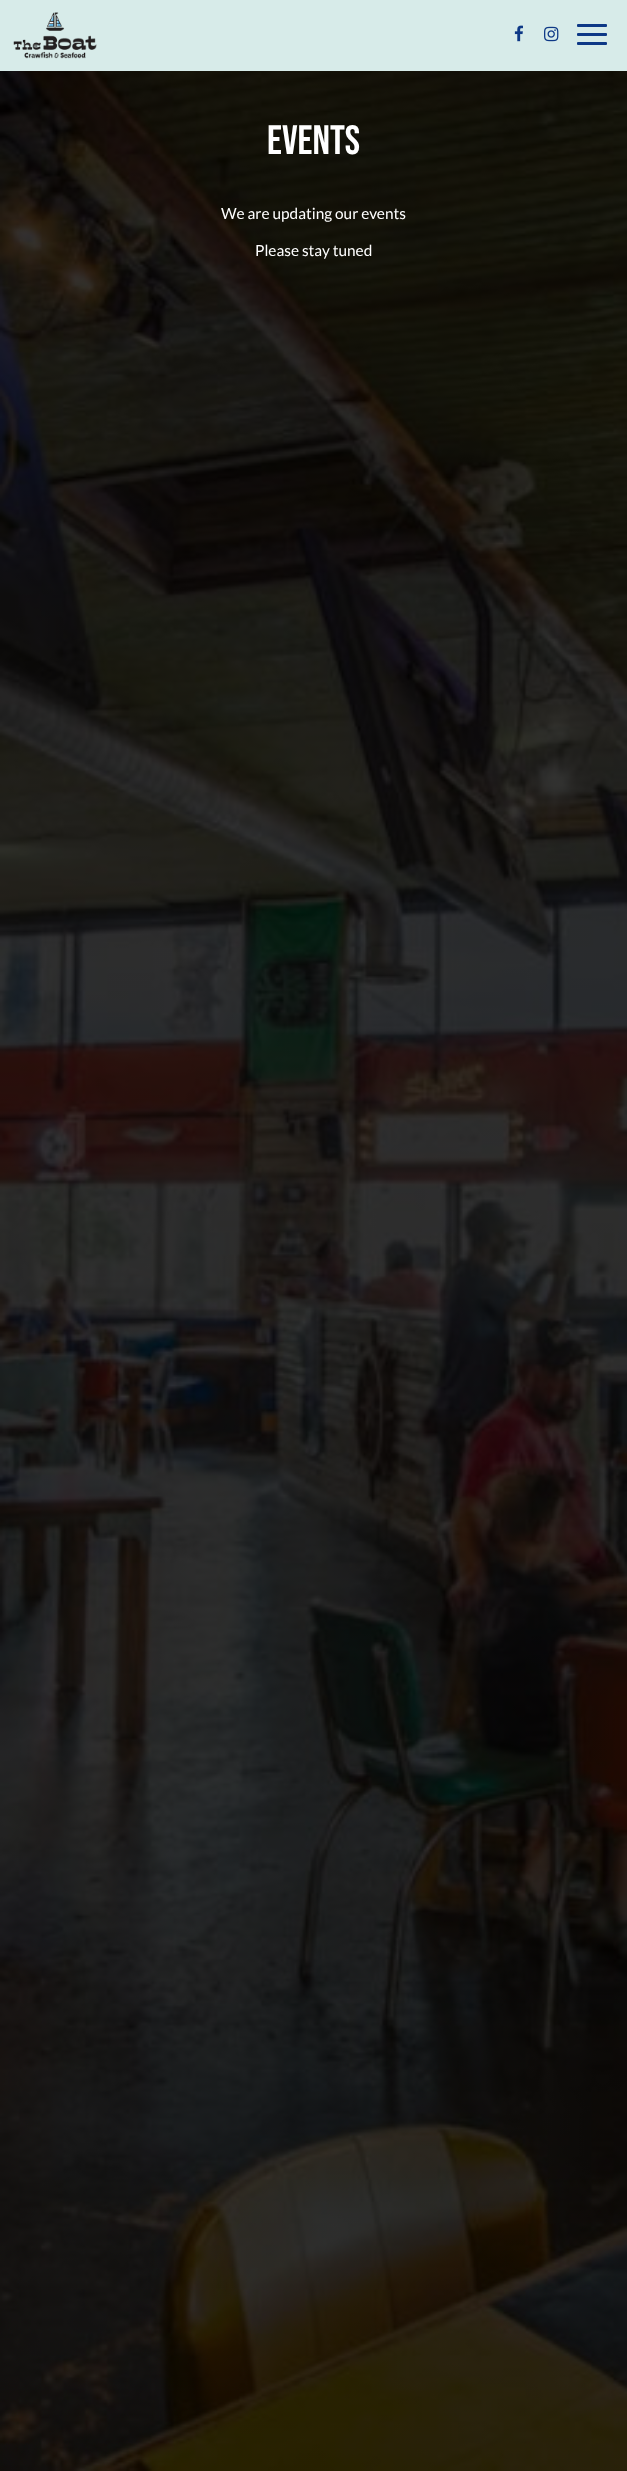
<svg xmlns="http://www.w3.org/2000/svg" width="627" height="2471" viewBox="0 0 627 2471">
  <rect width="100%" height="100%" fill="rgb(255,255,255)"/>
  <image x="0" y="71" width="627" height="2400" href="pic1.png"/>
  <rect x="0" y="0" width="627" height="71" fill="rgb(215,235,233)"/>
  <rect x="577" y="24" width="30" height="3" rx="1" fill="rgb(13,56,134)"/>
  <rect x="577" y="33" width="30" height="3" rx="1" fill="rgb(13,56,134)"/>
  <rect x="577" y="42" width="30" height="3" rx="1" fill="rgb(13,56,134)"/>
  <image x="13" y="12" width="84" height="47" href="pic2.png"/>
  <image x="514" y="25" width="9" height="17" href="pic3.png"/>
  <image x="544" y="26" width="15" height="16" href="pic4.png"/>
  <text x="267" y="154" font-family="Bebas Neue" font-size="41" fill="rgb(255,255,255)">EVENTS</text>
  <g font-family="Lato" font-size="15.4" fill="rgb(255,255,255)">
    <text x="221" y="219">We are updating our events</text>
    <text x="255" y="256">Please stay tuned</text>
  </g>
</svg>
